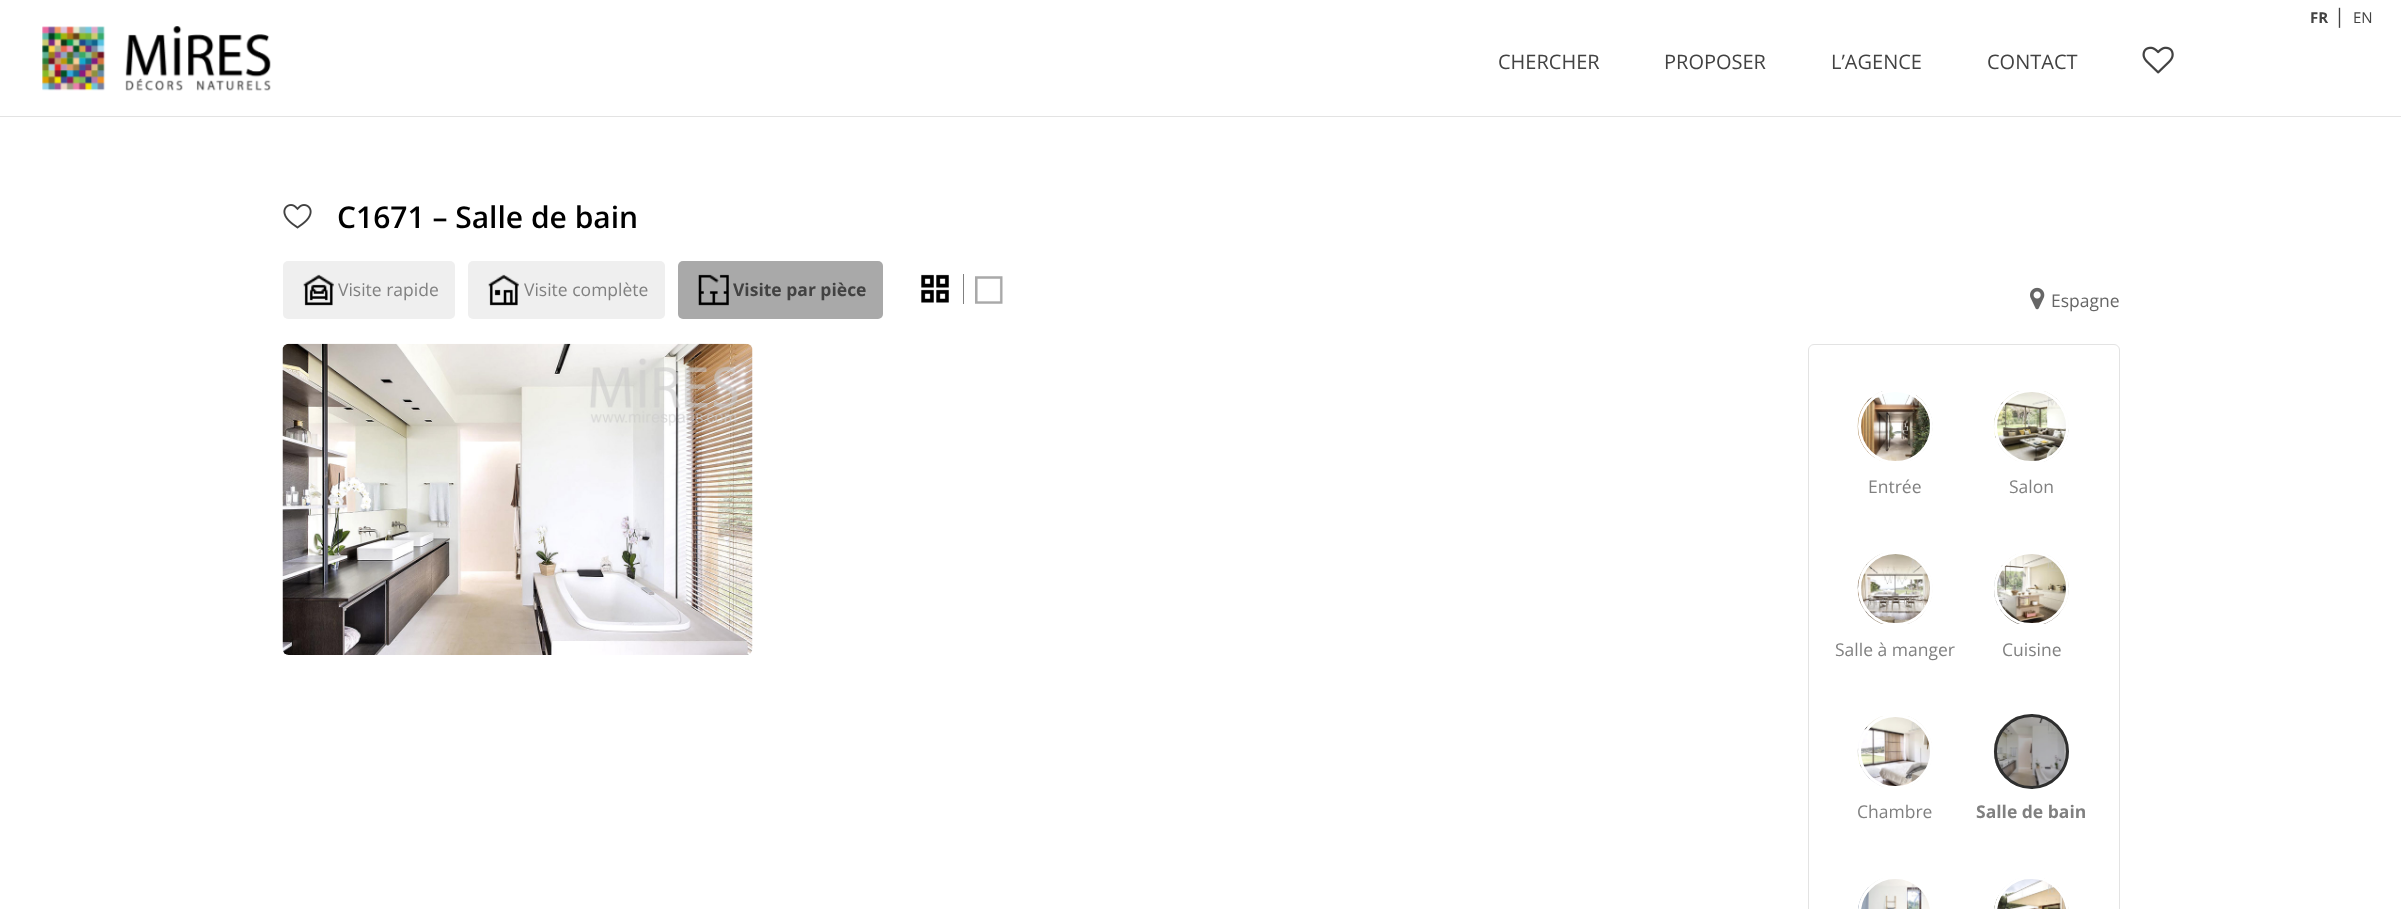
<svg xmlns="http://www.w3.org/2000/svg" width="2401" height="909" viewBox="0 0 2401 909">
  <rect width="100%" height="100%" fill="rgb(255,255,255)"/>
  <rect x="0" y="116" width="2401" height="1" fill="rgb(227,227,227)"/>
  <image x="42" y="26" width="229" height="65" href="pic1.png"/>
  <text x="2310" y="23" font-family="Open Sans" font-size="15" font-weight="bold" fill="rgb(66,66,66)">FR</text>
  <text x="2334" y="23" font-family="Open Sans" font-size="20" fill="rgb(66,66,66)">|</text>
  <text x="2353" y="23" font-family="Open Sans" font-size="15" fill="rgb(66,66,66)">EN</text>
  <g font-family="Open Sans" font-size="20" fill="rgb(66,66,66)">
    <text x="1498" y="69">CHERCHER</text>
    <text x="1664" y="69">PROPOSER</text>
    <text x="1831" y="69">L’AGENCE</text>
    <text x="1987" y="69">CONTACT</text>
  </g>
  <image x="2142" y="46" width="32" height="28" href="pic2.png"/>
  <image x="283" y="204" width="29" height="25" href="pic3.png"/>
  <text x="337" y="228" font-family="Open Sans" font-size="30" font-weight="600" fill="rgb(0,0,0)">C1671 – Salle de bain</text>
  <rect x="283" y="261" width="172" height="58" rx="5" fill="rgb(239,239,239)"/>
  <image x="303" y="274" width="31" height="32" href="pic4.png"/>
  <text x="338" y="296" font-family="Open Sans" font-size="17.5" fill="rgb(128,128,128)">Visite rapide</text>
  <rect x="468" y="261" width="197" height="58" rx="5" fill="rgb(239,239,239)"/>
  <image x="488" y="274" width="31" height="32" href="pic5.png"/>
  <text x="524" y="296" font-family="Open Sans" font-size="17.5" fill="rgb(128,128,128)">Visite complète</text>
  <rect x="678" y="261" width="205" height="58" rx="5" fill="rgb(169,169,169)"/>
  <image x="698" y="274" width="31" height="32" href="pic6.png"/>
  <text x="733" y="296" font-family="Open Sans" font-size="17.5" font-weight="bold" fill="rgb(66,66,66)">Visite par pièce</text>
  <image x="921" y="274" width="28" height="29" href="pic7.png"/>
  <rect x="963" y="274" width="1" height="30" fill="rgb(128,128,128)"/>
  <image x="975" y="276" width="28" height="28" href="pic8.png"/>
  <image x="2030" y="287" width="15" height="23" href="pic9.png"/>
  <text x="2051" y="307" font-family="Open Sans" font-size="17.5" fill="rgb(102,102,102)">Espagne</text>
  <image x="282" y="343" width="471" height="312" href="pic10.png"/>
  <rect x="1808.5" y="344.5" width="311" height="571" rx="5.5" fill="none" stroke="rgb(227,227,227)"/>
  <image x="1857" y="391" width="76" height="71" href="pic11.png"/>
  <circle cx="1895.5" cy="426.5" r="36" fill="none" stroke="rgb(255,255,255)" stroke-width="3"/>
  <text x="1868" y="493" font-family="Open Sans" font-size="17.5" fill="rgb(128,128,128)">Entrée</text>
  <image x="1993" y="391" width="76" height="71" href="pic12.png"/>
  <circle cx="2031.5" cy="426.5" r="36" fill="none" stroke="rgb(255,255,255)" stroke-width="3"/>
  <text x="2009" y="493" font-family="Open Sans" font-size="17.5" fill="rgb(128,128,128)">Salon</text>
  <image x="1857" y="553" width="76" height="71" href="pic13.png"/>
  <circle cx="1895.5" cy="588.5" r="36" fill="none" stroke="rgb(255,255,255)" stroke-width="3"/>
  <text x="1835" y="656" font-family="Open Sans" font-size="17.5" fill="rgb(128,128,128)">Salle à manger</text>
  <image x="1994" y="553" width="75" height="71" href="pic14.png"/>
  <circle cx="2031.5" cy="588.5" r="36" fill="none" stroke="rgb(255,255,255)" stroke-width="3"/>
  <text x="2002" y="656" font-family="Open Sans" font-size="17.5" fill="rgb(128,128,128)">Cuisine</text>
  <image x="1857" y="716" width="76" height="71" href="pic15.png"/>
  <circle cx="1895.5" cy="751.5" r="36" fill="none" stroke="rgb(255,255,255)" stroke-width="3"/>
  <text x="1857" y="818" font-family="Open Sans" font-size="17.5" fill="rgb(128,128,128)">Chambre</text>
  <image x="1993" y="716" width="76" height="71" href="pic16.png"/>
  <circle cx="2031.5" cy="751.5" r="36" fill="none" stroke="rgb(46,46,46)" stroke-width="3"/>
  <text x="1976" y="818" font-family="Open Sans" font-size="17.5" font-weight="bold" fill="rgb(128,128,128)">Salle de bain</text>
  <image x="1858" y="878" width="74" height="31" href="pic17.png"/>
  <rect x="1859.5" y="877.5" width="72" height="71" rx="36" fill="none" stroke="rgb(255,255,255)" stroke-width="3"/>
  <image x="1994" y="878" width="75" height="31" href="pic18.png"/>
  <rect x="1995.5" y="877.5" width="72" height="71" rx="36" fill="none" stroke="rgb(255,255,255)" stroke-width="3"/>
</svg>
